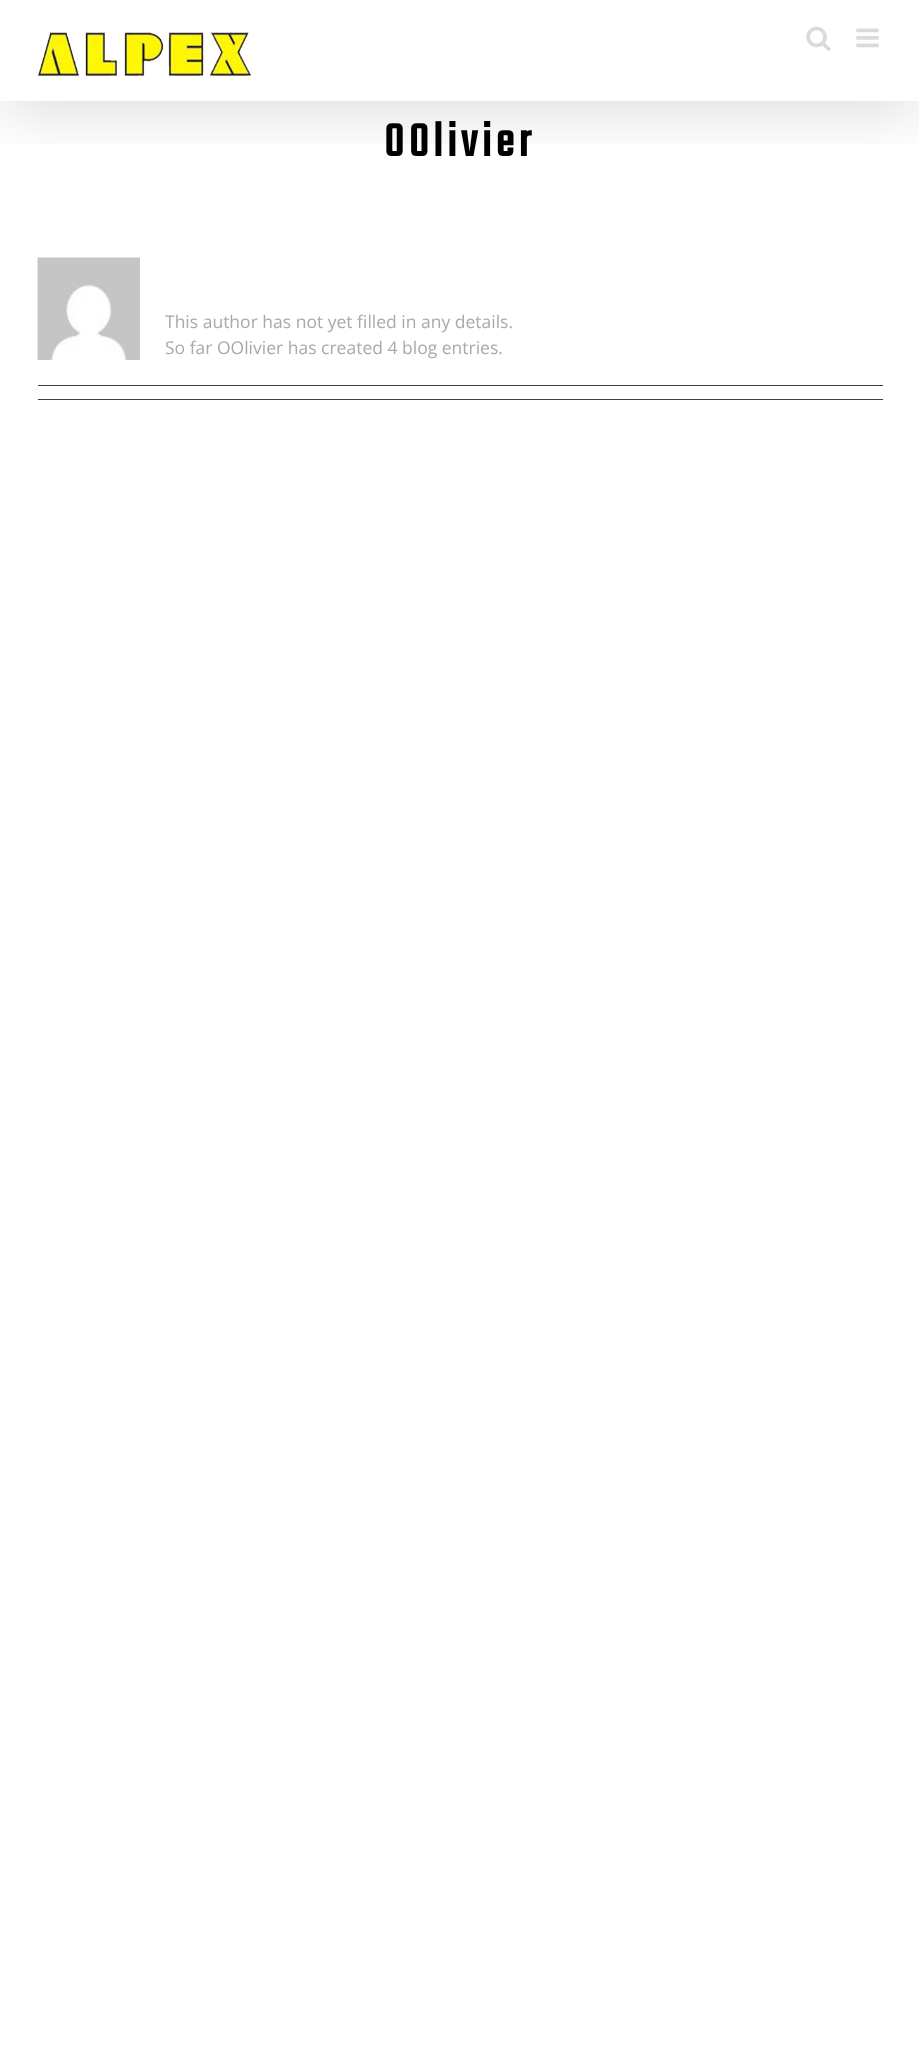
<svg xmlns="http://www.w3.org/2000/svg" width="919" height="2053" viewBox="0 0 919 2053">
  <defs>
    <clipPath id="clip1"><rect x="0" y="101" width="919" height="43"/></clipPath>
  </defs>
  <rect width="100%" height="100%" fill="rgb(255,255,255)"/>
  <g clip-path="url(#clip1)">
    <rect x="3" y="15" width="915" height="96" fill="rgba(0,0,0,0.14)" filter="blur(31px)"/>
  </g>
  <image x="37" y="32" width="214" height="45" href="pic1.png"/>
  <image x="806" y="26" width="25" height="25" href="pic2.png"/>
  <image x="856" y="28" width="23" height="20" href="pic3.png"/>
  <text x="384" y="156" font-family="Teko" font-size="50" font-weight="bold" letter-spacing="5" fill="rgb(0,0,0)">OOlivier</text>
  <image x="37" y="257" width="103" height="103" href="pic4.png"/>
  <g font-family="Open Sans" font-size="17.5" fill="rgb(170,169,169)">
    <text>
      <tspan x="165" y="328">This author has not yet filled in any details.</tspan>
      <tspan x="165" y="354">So far OOlivier has created 4 blog entries.</tspan>
    </text>
  </g>
  <rect x="38" y="385" width="845" height="1" fill="rgb(62,62,62)"/>
  <rect x="38" y="399" width="845" height="1" fill="rgb(62,62,62)"/>
</svg>
